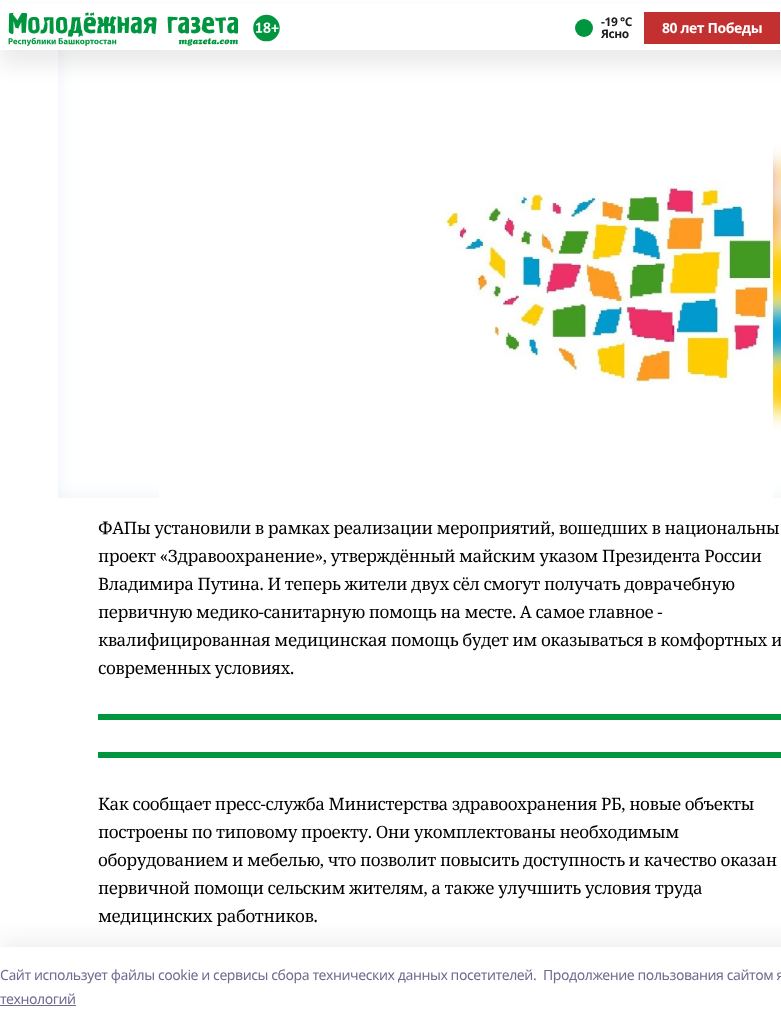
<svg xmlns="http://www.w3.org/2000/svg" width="781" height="1027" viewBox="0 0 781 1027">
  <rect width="100%" height="100%" fill="rgb(255,255,255)"/>
  <rect x="58" y="50" width="723" height="448" fill="rgb(237,242,247)"/>
  <image x="58" y="50" width="723" height="448" href="pic2.png"/>
  <image x="159" y="50" width="614" height="448" href="pic3.png"/>
  <rect x="0" y="15" width="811" height="50" fill="rgba(0,0,0,0.08)" filter="blur(10px)"/>
  <rect x="0" y="4" width="781" height="46" fill="rgb(255,255,255)"/>
  <image x="8" y="12" width="272" height="34" href="pic1.png"/>
  <circle cx="584" cy="28" r="9" fill="rgb(0,150,63)"/>
  <g font-family="Noto Sans" font-size="12" font-weight="bold" letter-spacing="-0.42" fill="rgb(26,26,26)">
    <text>
      <tspan x="601" y="26">-19 °С</tspan>
      <tspan x="601" y="38">Ясно</tspan>
    </text>
  </g>
  <rect x="644" y="12" width="136" height="32" fill="rgb(194,48,48)"/>
  <text x="662" y="33" font-family="Noto Sans" font-size="14" font-weight="bold" letter-spacing="-0.42" fill="rgb(255,255,255)">80 лет Победы</text>
  <g font-family="Noto Serif" font-size="17" letter-spacing="-0.42" fill="rgb(0,0,0)">
    <text>
      <tspan x="98" y="534">ФАПы установили в рамках реализации мероприятий, вошедших в национальны</tspan>
      <tspan x="98" y="562">проект «Здравоохранение», утверждённый майским указом Президента России</tspan>
      <tspan x="98" y="590">Владимира Путина. И теперь жители двух сёл смогут получать доврачебную</tspan>
      <tspan x="98" y="618">первичную медико-санитарную помощь на месте. А самое главное -</tspan>
      <tspan x="98" y="646">квалифицированная медицинская помощь будет им оказываться в комфортных и</tspan>
      <tspan x="98" y="674">современных условиях.</tspan>
    </text>
  </g>
  <rect x="98" y="714" width="683" height="6" fill="rgb(0,150,63)"/>
  <rect x="98" y="752" width="683" height="6" fill="rgb(0,150,63)"/>
  <g font-family="Noto Serif" font-size="17" letter-spacing="-0.42" fill="rgb(0,0,0)">
    <text>
      <tspan x="98" y="810">Как сообщает пресс-служба Министерства здравоохранения РБ, новые объекты</tspan>
      <tspan x="98" y="838">построены по типовому проекту. Они укомплектованы необходимым</tspan>
      <tspan x="98" y="866">оборудованием и мебелью, что позволит повысить доступность и качество оказан</tspan>
      <tspan x="98" y="894">первичной помощи сельским жителям, а также улучшить условия труда</tspan>
      <tspan x="98" y="922">медицинских работников.</tspan>
    </text>
  </g>
  <rect x="0" y="941" width="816" height="80" fill="rgba(20,20,43,0.08)" filter="blur(11.5px)"/>
  <rect x="0" y="947" width="781" height="80" fill="rgb(255,255,255)"/>
  <g font-family="Noto Sans" font-size="14" letter-spacing="-0.42" fill="rgb(111,108,144)">
    <text x="0" y="980">Cайт использует файлы cookie и сервисы сбора технических данных посетителей.</text>
    <text x="543" y="980">Продолжение пользования сайтом я</text>
    <text x="0" y="1004">технологий</text>
  </g>
  <rect x="0" y="1005" width="76" height="1" fill="rgb(111,108,144)"/>
</svg>
